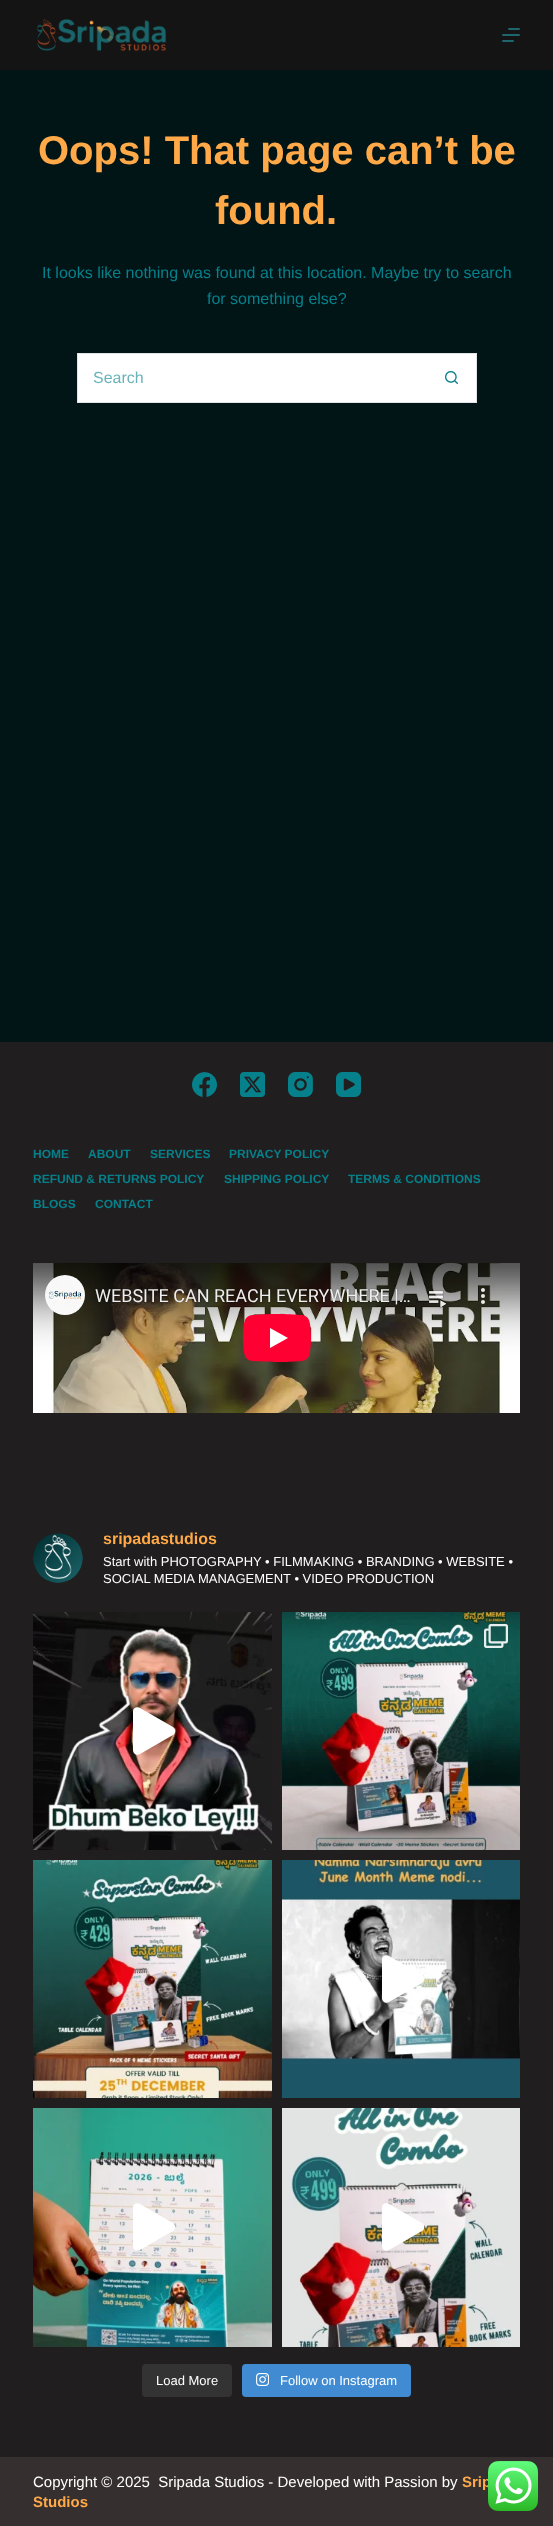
<svg xmlns="http://www.w3.org/2000/svg" width="553" height="2526" viewBox="0 0 553 2526">
  <rect width="100%" height="100%" fill="rgb(1,20,22)"/>
  <rect x="0" y="0" width="553" height="70" fill="rgb(20,20,21)"/>
  <image x="37" y="19" width="129" height="32" href="pic1.png"/>
  <rect x="508" y="28" width="12" height="2" rx="1" fill="rgb(29,102,107)"/>
  <rect x="502" y="34" width="18" height="2" rx="1" fill="rgb(29,102,107)"/>
  <rect x="502" y="40" width="12" height="2" rx="1" fill="rgb(29,102,107)"/>
  <g font-family="Liberation Sans" font-size="40" font-weight="bold" fill="rgb(255,169,72)">
    <text x="38" y="164">Oops! That page can’t be</text>
    <text x="215" y="224">found.</text>
  </g>
  <g font-family="Liberation Sans" font-size="16" fill="rgb(6,128,139)">
    <text x="42" y="278">It looks like nothing was found at this location. Maybe try to search</text>
    <text x="207" y="304">for something else?</text>
  </g>
  <rect x="77" y="353" width="400" height="50" fill="rgb(255,255,255)"/>
  <path d="M77 353H427V354H78Z" fill="rgb(225,227,228)"/>
  <path d="M427 403H77L78 402H427Z" fill="rgb(225,227,228)"/>
  <path d="M77 403V353L78 354V402Z" fill="rgba(103,113,120,0.2)"/>
  <text x="93" y="383" font-family="Liberation Sans" font-size="16" fill="rgb(106,179,185)">Search</text>
  <path d="M427 353H477L476 354H427Z" fill="rgb(225,227,228)"/>
  <path d="M477 353V403L476 402V354Z" fill="rgba(103,113,120,0.2)"/>
  <path d="M477 403H427V402H476Z" fill="rgba(103,113,120,0.2)"/>
  <image x="445" y="371" width="13" height="13" href="pic2.png"/>
  <rect x="0" y="1042" width="553" height="1415" fill="rgb(32,30,30)"/>
  <image x="192" y="1072" width="25" height="25" href="pic3.png"/>
  <image x="240" y="1072" width="25" height="25" href="pic4.png"/>
  <image x="288" y="1072" width="25" height="25" href="pic5.png"/>
  <image x="336" y="1072" width="25" height="25" href="pic6.png"/>
  <g font-family="Liberation Sans" font-size="12" font-weight="bold" fill="rgb(6,128,139)">
    <text x="33" y="1158">HOME</text>
    <text x="88" y="1158">ABOUT</text>
    <text x="150" y="1158">SERVICES</text>
    <text x="229" y="1158">PRIVACY POLICY</text>
    <text x="33" y="1183">REFUND &amp; RETURNS POLICY</text>
    <text x="224" y="1183">SHIPPING POLICY</text>
    <text x="348" y="1183">TERMS &amp; CONDITIONS</text>
    <text x="33" y="1208">BLOGS</text>
    <text x="95" y="1208">CONTACT</text>
  </g>
  <image x="33" y="1263" width="487" height="150" href="pic7.png"/>
  <image x="33" y="1533" width="50" height="50" href="pic8.png"/>
  <text x="103" y="1544" font-family="Liberation Sans" font-size="16" font-weight="bold" fill="rgb(255,169,72)">sripadastudios</text>
  <g font-family="Liberation Sans" font-size="13" fill="rgb(255,255,255)">
    <text>
      <tspan x="103" y="1566">Start with PHOTOGRAPHY • FILMMAKING • BRANDING • WEBSITE •</tspan>
      <tspan x="103" y="1583">SOCIAL MEDIA MANAGEMENT • VIDEO PRODUCTION</tspan>
    </text>
  </g>
  <image x="33" y="1612" width="239" height="238" href="pic9.png"/>
  <path d="M173 1727L140 1708C137 1706 133 1708 133 1711V1750C133 1754 137 1756 140 1754L173 1735C176 1733 176 1729 173 1727Z" fill="rgb(255,255,255)"/>
  <image x="282" y="1612" width="238" height="238" href="pic10.png"/>
  <image x="484" y="1624" width="24" height="24" href="pic11.png"/>
  <image x="33" y="1860" width="239" height="238" href="pic12.png"/>
  <image x="282" y="1860" width="238" height="238" href="pic13.png"/>
  <path d="M422 1975L389 1956C386 1954 382 1956 382 1959V1998C382 2002 386 2004 389 2002L422 1983C425 1981 425 1977 422 1975Z" fill="rgb(255,255,255)"/>
  <image x="33" y="2108" width="239" height="239" href="pic14.png"/>
  <path d="M173 2223L140 2204C137 2202 133 2204 133 2207V2246C133 2250 137 2252 140 2250L173 2231C176 2229 176 2225 173 2223Z" fill="rgb(255,255,255)"/>
  <image x="282" y="2108" width="238" height="239" href="pic15.png"/>
  <path d="M422 2223L389 2204C386 2202 382 2204 382 2207V2246C382 2250 386 2252 389 2250L422 2231C425 2229 425 2225 422 2223Z" fill="rgb(255,255,255)"/>
  <rect x="142" y="2364" width="90" height="33" rx="4" fill="rgb(51,51,51)"/>
  <text x="156" y="2385" font-family="Liberation Sans" font-size="13" fill="rgb(255,255,255)">Load More</text>
  <rect x="242" y="2364" width="169" height="33" rx="4" fill="rgb(64,139,209)"/>
  <image x="256" y="2373" width="13" height="13" href="pic16.png"/>
  <text x="280" y="2385" font-family="Liberation Sans" font-size="13" fill="rgb(255,255,255)">Follow on Instagram</text>
  <rect x="0" y="2457" width="553" height="69" fill="rgb(54,47,47)"/>
  <text x="33" y="2487" font-family="Liberation Sans" font-size="15" fill="rgb(255,255,255)" xml:space="preserve">Copyright © 2025  Sripada Studios - Developed with Passion by</text>
  <g font-family="Liberation Sans" font-size="15" font-weight="bold" fill="rgb(255,169,72)">
    <text x="462" y="2487">Srip</text>
    <text x="33" y="2507">Studios</text>
  </g>
  <image x="488" y="2461" width="50" height="50" href="pic17.png"/>
</svg>
